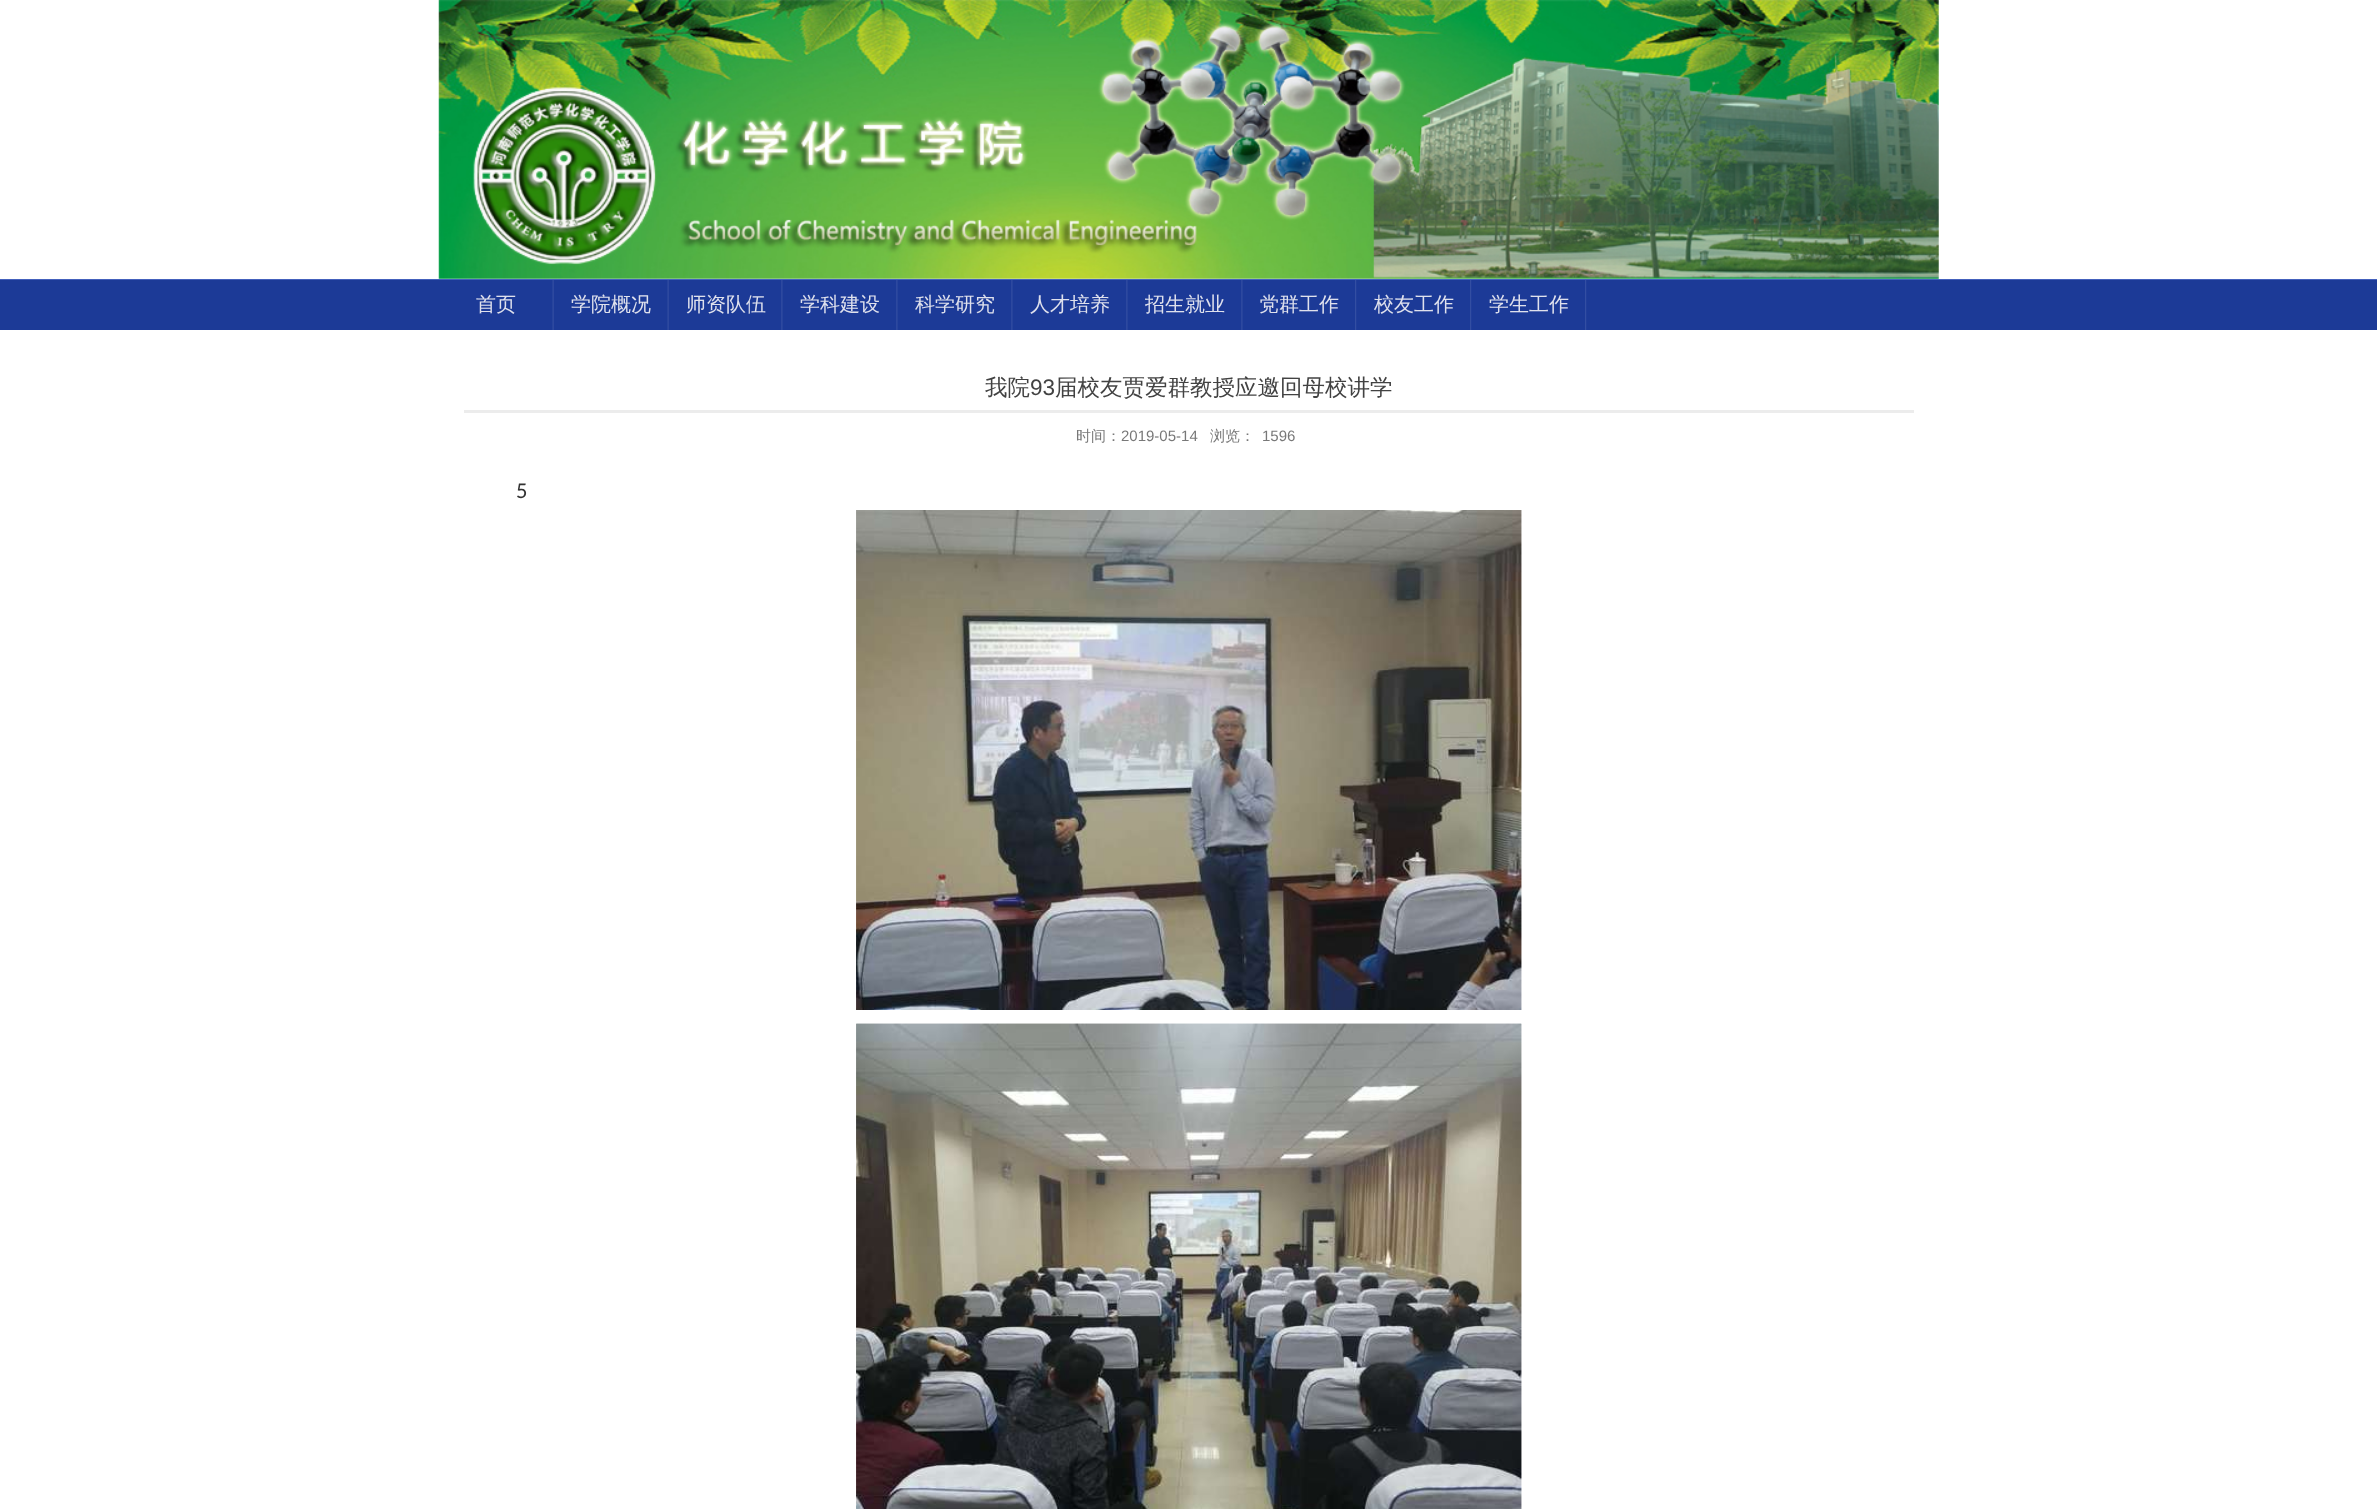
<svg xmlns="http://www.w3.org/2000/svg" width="2377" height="1509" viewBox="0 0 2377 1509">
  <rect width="100%" height="100%" fill="rgb(255,255,255)"/>
  <image x="438" y="0" width="1501" height="279" href="pic1.png"/>
  <rect x="0" y="280" width="2377" height="50" fill="rgb(28,58,151)"/>
  <rect x="0" y="279" width="2377" height="1" fill="rgb(68,97,189)"/>
  <image x="552" y="280" width="2" height="50" href="pic2.png"/>
  <text x="476" y="311" font-family="WenQuanYi Zen Hei" font-size="20" font-weight="500" fill="rgb(223,225,237)">首页</text>
  <image x="667" y="280" width="2" height="50" href="pic2.png"/>
  <text x="571" y="311" font-family="WenQuanYi Zen Hei" font-size="20" font-weight="500" fill="rgb(223,225,237)">学院概况</text>
  <image x="781" y="280" width="2" height="50" href="pic3.png"/>
  <text x="686" y="311" font-family="WenQuanYi Zen Hei" font-size="20" font-weight="500" fill="rgb(223,225,237)">师资队伍</text>
  <image x="896" y="280" width="2" height="50" href="pic3.png"/>
  <text x="800" y="311" font-family="WenQuanYi Zen Hei" font-size="20" font-weight="500" fill="rgb(223,225,237)">学科建设</text>
  <image x="1011" y="280" width="2" height="50" href="pic3.png"/>
  <text x="915" y="311" font-family="WenQuanYi Zen Hei" font-size="20" font-weight="500" fill="rgb(223,225,237)">科学研究</text>
  <image x="1126" y="280" width="2" height="50" href="pic3.png"/>
  <text x="1030" y="311" font-family="WenQuanYi Zen Hei" font-size="20" font-weight="500" fill="rgb(223,225,237)">人才培养</text>
  <image x="1241" y="280" width="2" height="50" href="pic3.png"/>
  <text x="1145" y="311" font-family="WenQuanYi Zen Hei" font-size="20" font-weight="500" fill="rgb(223,225,237)">招生就业</text>
  <image x="1355" y="280" width="2" height="50" href="pic4.png"/>
  <text x="1259" y="311" font-family="WenQuanYi Zen Hei" font-size="20" font-weight="500" fill="rgb(223,225,237)">党群工作</text>
  <image x="1470" y="280" width="2" height="50" href="pic4.png"/>
  <text x="1374" y="311" font-family="WenQuanYi Zen Hei" font-size="20" font-weight="500" fill="rgb(223,225,237)">校友工作</text>
  <image x="1585" y="280" width="2" height="50" href="pic4.png"/>
  <text x="1489" y="311" font-family="WenQuanYi Zen Hei" font-size="20" font-weight="500" fill="rgb(223,225,237)">学生工作</text>
  <rect x="464" y="410" width="1450" height="3" fill="rgb(236,236,236)"/>
  <text x="985" y="395" font-family="WenQuanYi Zen Hei" font-size="22.5" font-weight="500" fill="rgb(66,66,66)">我院</text>
  <text x="1030" y="395" font-family="Liberation Sans" font-size="22.5" fill="rgb(66,66,66)">93</text>
  <text x="1055" y="395" font-family="WenQuanYi Zen Hei" font-size="22.5" font-weight="500" fill="rgb(66,66,66)">届校友贾爱群教授应邀回母校讲学</text>
  <text x="1076" y="441" font-family="WenQuanYi Zen Hei" font-size="15" font-weight="500" fill="rgb(120,120,120)">时间：</text>
  <text x="1121" y="441" font-family="Liberation Sans" font-size="15" fill="rgb(120,120,120)">2019-05-14</text>
  <text x="1210" y="441" font-family="WenQuanYi Zen Hei" font-size="15" font-weight="500" fill="rgb(120,120,120)">浏览：</text>
  <text x="1262" y="441" font-family="Liberation Sans" font-size="15" fill="rgb(120,120,120)">1596</text>
  <text x="516" y="498" font-family="Carlito" font-size="22.5" fill="rgb(51,51,51)">5</text>
  <image x="856" y="510" width="666" height="500" href="pic5.png"/>
  <image x="856" y="510" width="666" height="500" href="pic6.png"/>
  <image x="856" y="1023" width="666" height="486" href="pic7.png"/>
  <image x="856" y="1023" width="666" height="486" href="pic8.png"/>
</svg>
